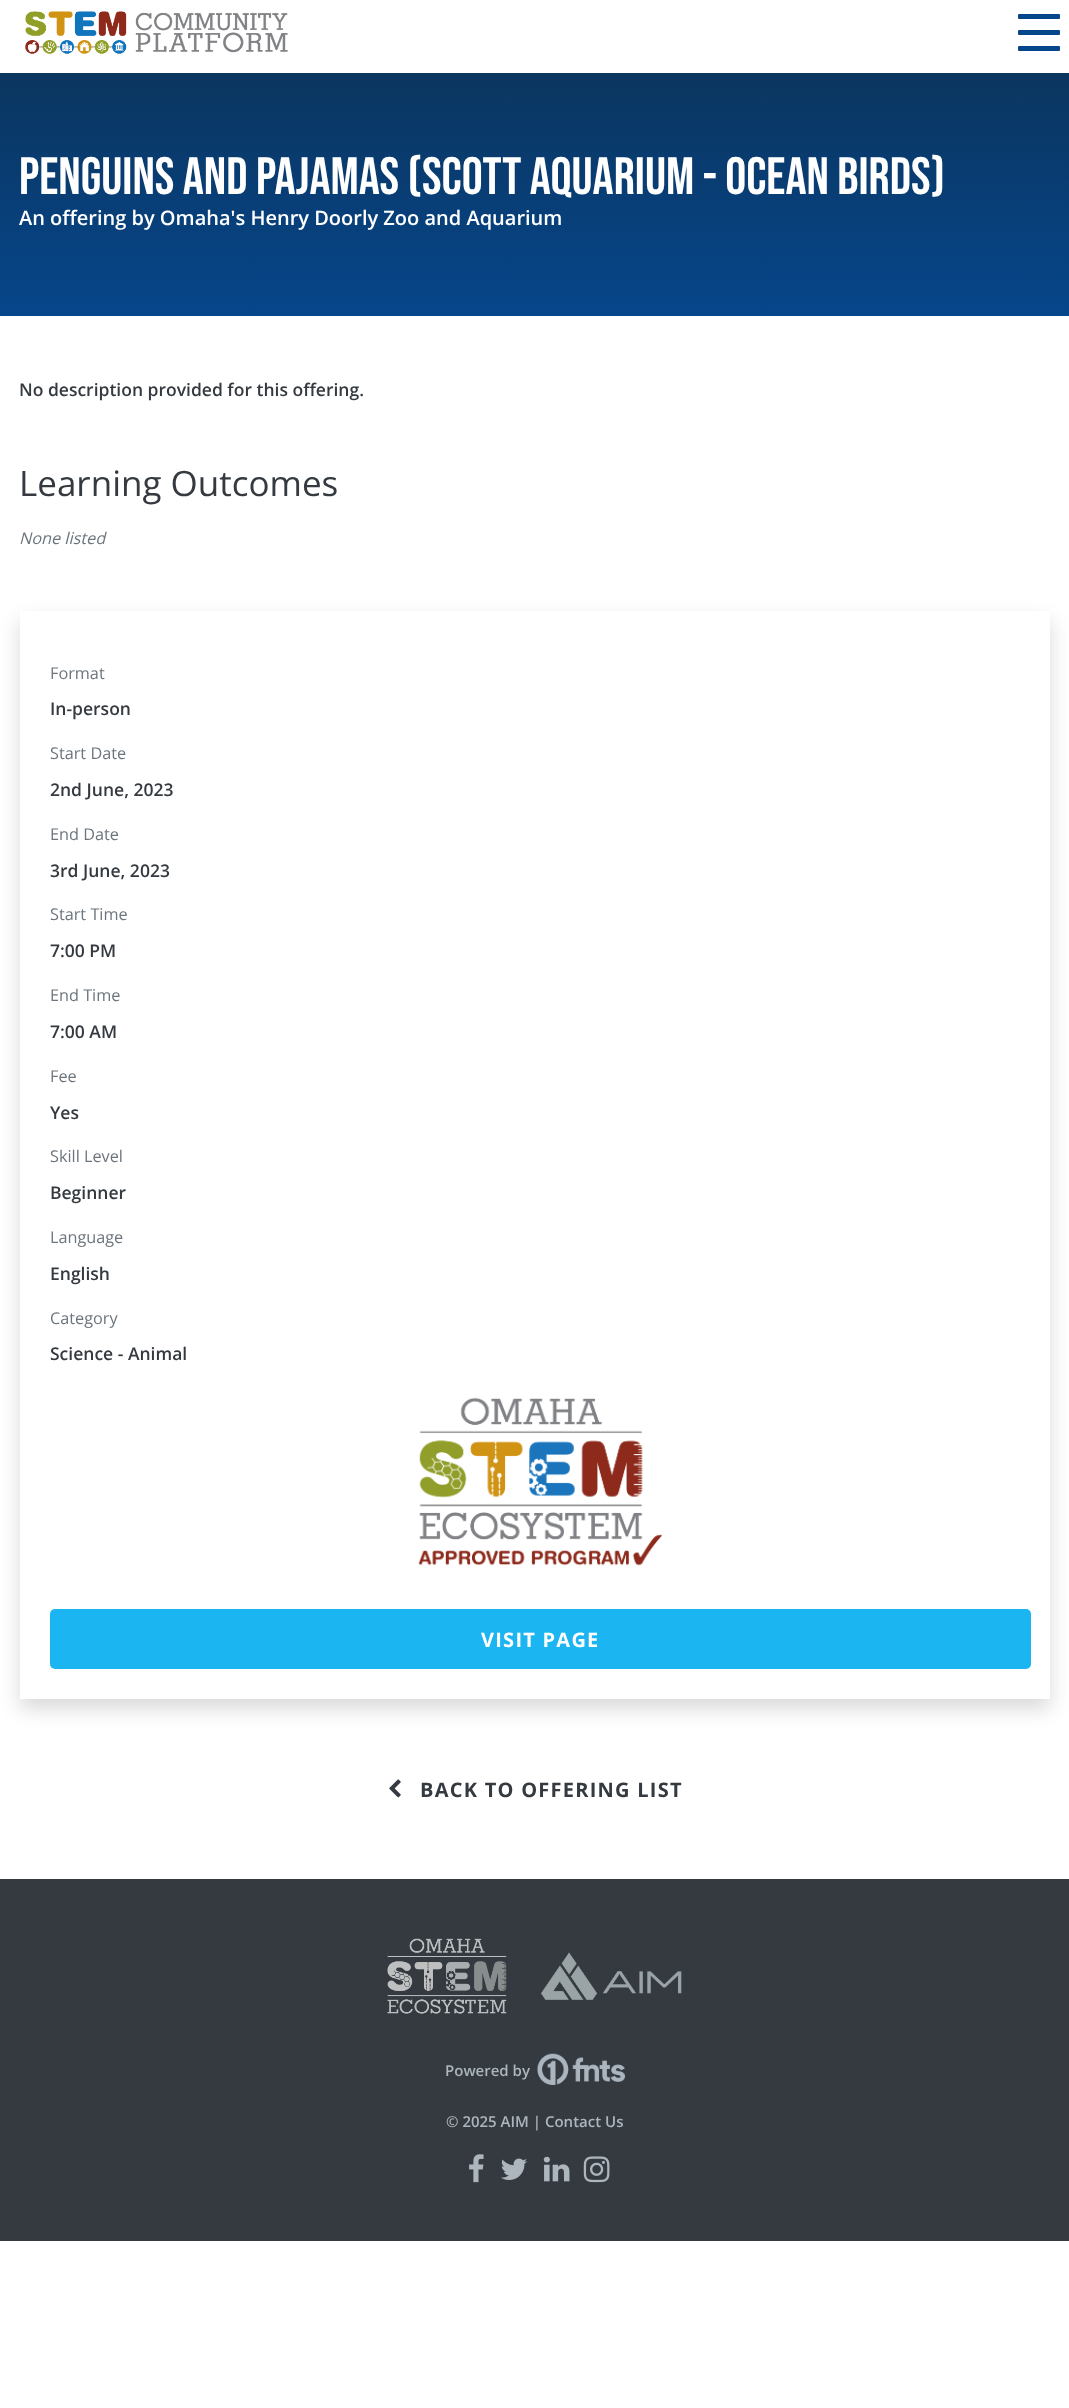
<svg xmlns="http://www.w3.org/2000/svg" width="1069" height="2408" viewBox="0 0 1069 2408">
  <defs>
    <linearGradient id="g1" gradientUnits="userSpaceOnUse" x1="535" y1="-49" x2="535" y2="316"><stop offset="0" stop-color="rgb(13,45,73)"/><stop offset="1" stop-color="rgb(6,70,139)"/></linearGradient>
  </defs>
  <rect width="100%" height="100%" fill="rgb(255,255,255)"/>
  <image x="25" y="11" width="263" height="43" href="pic1.png"/>
  <rect x="1018" y="14" width="42" height="5" rx="1" fill="rgb(6,70,139)"/>
  <rect x="1018" y="30" width="42" height="5" rx="1" fill="rgb(6,70,139)"/>
  <rect x="1018" y="46" width="42" height="5" rx="1" fill="rgb(6,70,139)"/>
  <rect x="0" y="73" width="1069" height="243" fill="url(#g1)"/>
  <text x="19" y="194" font-family="Bebas Neue" font-size="52.5" fill="rgb(255,255,255)">Penguins and Pajamas (Scott Aquarium - Ocean Birds)</text>
  <text x="19" y="225" font-family="Open Sans" font-size="20" font-weight="600" fill="rgb(255,255,255)">An offering by Omaha's Henry Doorly Zoo and Aquarium</text>
  <text x="19" y="396" font-family="Open Sans" font-size="17.5" font-weight="600" fill="rgb(52,58,64)">No description provided for this offering.</text>
  <text x="19" y="496" font-family="Open Sans" font-size="35" fill="rgb(52,58,64)">Learning Outcomes</text>
  <text x="19" y="544" font-family="Open Sans" font-size="16.25" font-style="italic" fill="rgb(108,117,125)">None listed</text>
  <rect x="20" y="621" width="1030" height="1088" fill="rgba(0,0,0,0.15)" filter="blur(10px)"/>
  <rect x="20" y="611" width="1030" height="1088" fill="rgb(255,255,255)"/>
  <text x="50" y="679" font-family="Open Sans" font-size="16.25" fill="rgb(108,117,125)">Format</text>
  <text x="50" y="715" font-family="Open Sans" font-size="17.5" font-weight="600" fill="rgb(52,58,64)">In-person</text>
  <text x="50" y="759" font-family="Open Sans" font-size="16.25" fill="rgb(108,117,125)">Start Date</text>
  <text x="50" y="796" font-family="Open Sans" font-size="17.5" font-weight="600" fill="rgb(52,58,64)">2nd June, 2023</text>
  <text x="50" y="840" font-family="Open Sans" font-size="16.25" fill="rgb(108,117,125)">End Date</text>
  <text x="50" y="877" font-family="Open Sans" font-size="17.5" font-weight="600" fill="rgb(52,58,64)">3rd June, 2023</text>
  <text x="50" y="920" font-family="Open Sans" font-size="16.25" fill="rgb(108,117,125)">Start Time</text>
  <text x="50" y="957" font-family="Open Sans" font-size="17.5" font-weight="600" fill="rgb(52,58,64)">7:00 PM</text>
  <text x="50" y="1001" font-family="Open Sans" font-size="16.25" fill="rgb(108,117,125)">End Time</text>
  <text x="50" y="1038" font-family="Open Sans" font-size="17.5" font-weight="600" fill="rgb(52,58,64)">7:00 AM</text>
  <text x="50" y="1082" font-family="Open Sans" font-size="16.25" fill="rgb(108,117,125)">Fee</text>
  <text x="50" y="1119" font-family="Open Sans" font-size="17.5" font-weight="600" fill="rgb(52,58,64)">Yes</text>
  <text x="50" y="1162" font-family="Open Sans" font-size="16.25" fill="rgb(108,117,125)">Skill Level</text>
  <text x="50" y="1199" font-family="Open Sans" font-size="17.5" font-weight="600" fill="rgb(52,58,64)">Beginner</text>
  <text x="50" y="1243" font-family="Open Sans" font-size="16.25" fill="rgb(108,117,125)">Language</text>
  <text x="50" y="1280" font-family="Open Sans" font-size="17.5" font-weight="600" fill="rgb(52,58,64)">English</text>
  <text x="50" y="1324" font-family="Open Sans" font-size="16.25" fill="rgb(108,117,125)">Category</text>
  <text x="50" y="1360" font-family="Open Sans" font-size="17.5" font-weight="600" fill="rgb(52,58,64)">Science - Animal</text>
  <image x="418" y="1397" width="244" height="169" href="pic2.png"/>
  <rect x="50" y="1609" width="981" height="60" rx="5" fill="rgb(27,181,242)"/>
  <text x="481" y="1647" font-family="Open Sans" font-size="20" font-weight="bold" letter-spacing="1.25" fill="rgb(255,255,255)">VISIT PAGE</text>
  <image x="389" y="1779" width="12" height="19" href="pic3.png"/>
  <text x="420" y="1797" font-family="Open Sans" font-size="20" font-weight="bold" letter-spacing="1.25" fill="rgb(52,58,64)">BACK TO OFFERING LIST</text>
  <rect x="0" y="1879" width="1069" height="362" fill="rgb(52,58,64)"/>
  <image x="387" y="1938" width="120" height="76" href="pic4.png"/>
  <image x="540" y="1952" width="142" height="48" href="pic5.png"/>
  <text x="445" y="2076" font-family="Open Sans" font-size="15" font-weight="600" fill="rgb(173,181,189)">Powered by</text>
  <image x="537" y="2053" width="88" height="32" href="pic6.png"/>
  <text x="446" y="2127" font-family="Open Sans" font-size="15" font-weight="600" fill="rgb(173,181,189)">© 2025 AIM | Contact Us</text>
  <image x="469" y="2154" width="15" height="29" href="pic7.png"/>
  <image x="501" y="2158" width="26" height="22" href="pic8.png"/>
  <image x="543" y="2156" width="27" height="26" href="pic9.png"/>
  <image x="583" y="2156" width="27" height="27" href="pic10.png"/>
</svg>
